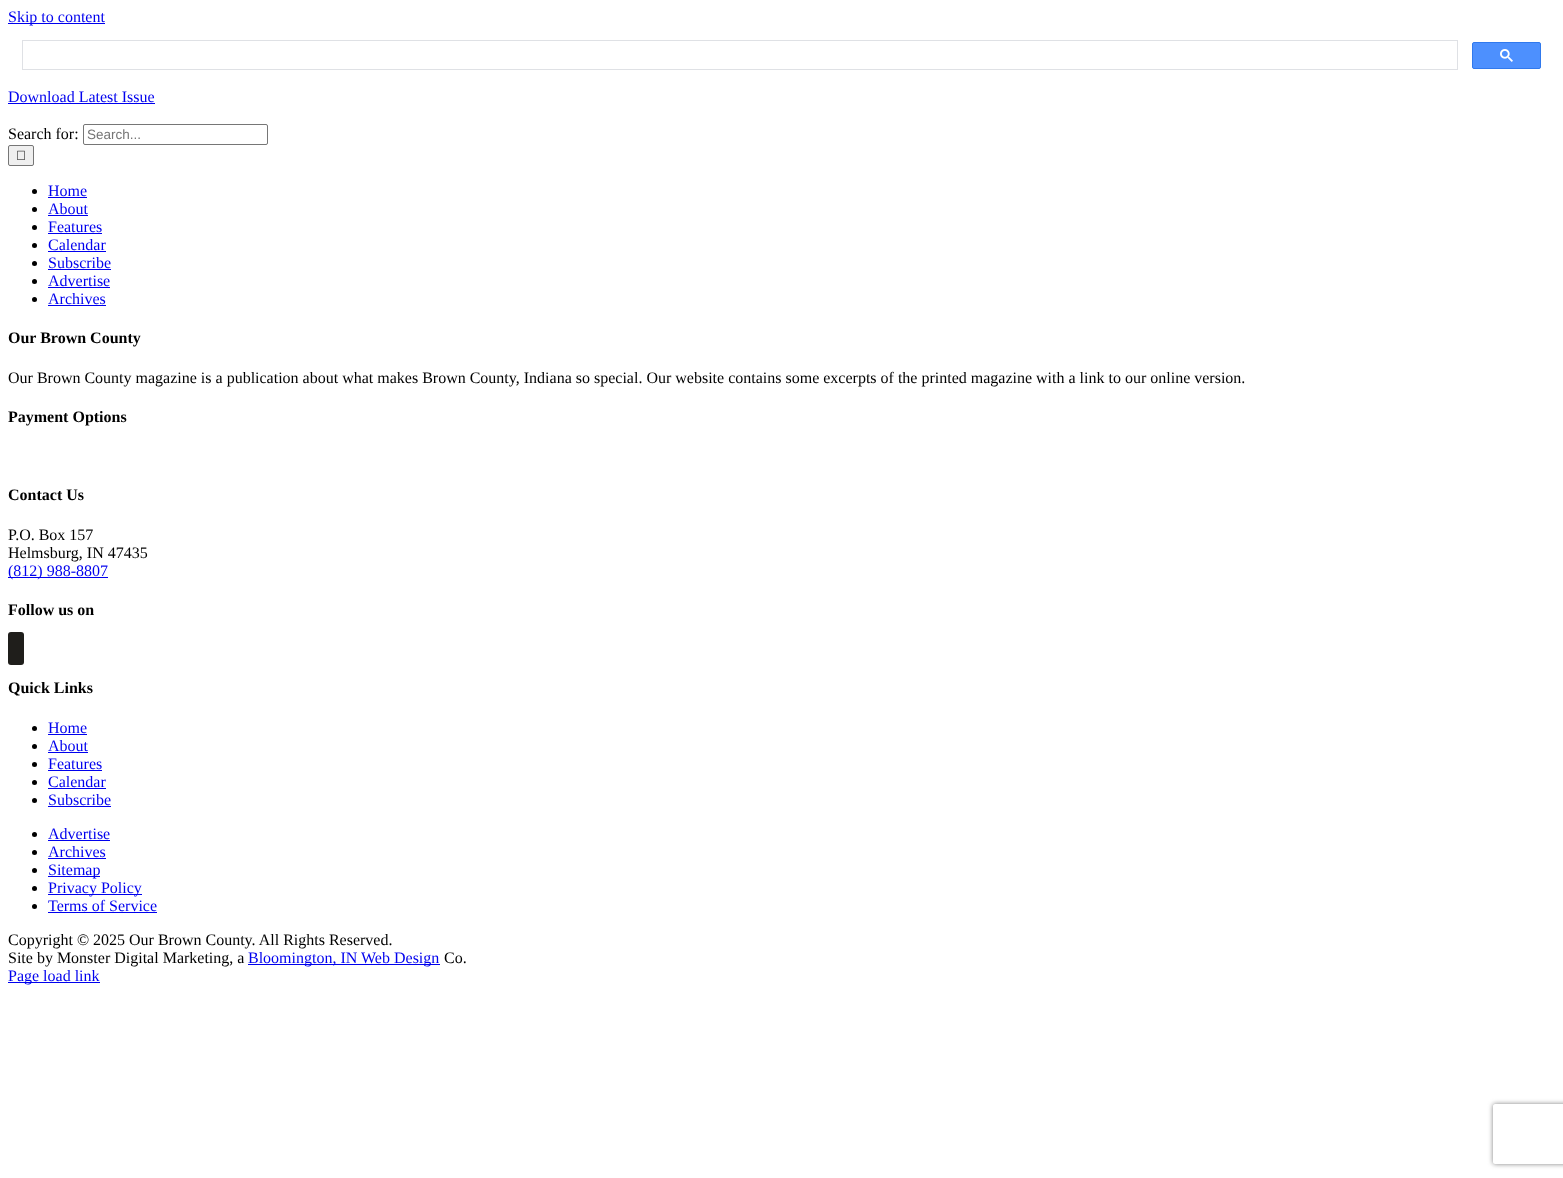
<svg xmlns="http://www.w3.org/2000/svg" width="1563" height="1178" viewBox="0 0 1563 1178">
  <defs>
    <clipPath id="clip1"><path d="M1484 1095H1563V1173H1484ZM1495 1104H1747C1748 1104 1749 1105 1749 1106V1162C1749 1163 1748 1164 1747 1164H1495C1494 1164 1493 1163 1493 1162V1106C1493 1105 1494 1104 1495 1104Z" clip-rule="evenodd"/></clipPath>
  </defs>
  <rect width="100%" height="100%" fill="rgb(255,255,255)"/>
  <rect x="8" y="23" width="97" height="1" fill="rgb(0,0,238)"/>
  <text x="8" y="22" font-family="Liberation Serif" font-size="16" fill="rgb(0,0,238)">Skip to content</text>
  <rect x="22.5" y="40.5" width="1435" height="29" fill="none" stroke="rgb(223,225,229)"/>
  <rect x="1472.5" y="42.5" width="68" height="26" rx="1.5" fill="rgb(77,144,254)" stroke="rgb(48,121,237)"/>
  <image x="1500" y="49" width="13" height="13" href="pic1.png"/>
  <text x="8" y="102" font-family="Liberation Serif" font-size="16" fill="rgb(0,0,238)">Download Latest Issue</text>
  <rect x="8" y="103" width="147" height="1" fill="rgb(0,0,238)"/>
  <text x="8" y="139" font-family="Liberation Serif" font-size="16" fill="rgb(0,0,0)">Search for:</text>
  <rect x="83.5" y="124.5" width="184" height="20" rx="1.5" fill="none" stroke="rgb(118,118,118)"/>
  <text x="87" y="139" font-family="Liberation Sans" font-size="13.5" fill="rgb(117,117,117)">Search...</text>
  <rect x="8.5" y="145.5" width="25" height="20" rx="1.5" fill="rgb(239,239,239)" stroke="rgb(118,118,118)"/>
  <image x="17" y="150" width="8" height="10" href="pic2.png"/>
  <circle cx="34.5" cy="191.5" r="2.5" fill="rgb(0,0,0)"/>
  <text x="48" y="196" font-family="Liberation Serif" font-size="16" fill="rgb(0,0,238)">Home</text>
  <rect x="48" y="197" width="39" height="1" fill="rgb(0,0,238)"/>
  <circle cx="34.5" cy="209.5" r="2.5" fill="rgb(0,0,0)"/>
  <text x="48" y="214" font-family="Liberation Serif" font-size="16" fill="rgb(0,0,238)">About</text>
  <rect x="48" y="215" width="40" height="1" fill="rgb(0,0,238)"/>
  <circle cx="34.5" cy="227.5" r="2.5" fill="rgb(0,0,0)"/>
  <text x="48" y="232" font-family="Liberation Serif" font-size="16" fill="rgb(0,0,238)">Features</text>
  <rect x="48" y="233" width="54" height="1" fill="rgb(0,0,238)"/>
  <circle cx="34.5" cy="245.5" r="2.5" fill="rgb(0,0,0)"/>
  <text x="48" y="250" font-family="Liberation Serif" font-size="16" fill="rgb(0,0,238)">Calendar</text>
  <rect x="48" y="251" width="58" height="1" fill="rgb(0,0,238)"/>
  <circle cx="34.5" cy="263.5" r="2.5" fill="rgb(0,0,0)"/>
  <text x="48" y="268" font-family="Liberation Serif" font-size="16" fill="rgb(0,0,238)">Subscribe</text>
  <rect x="48" y="269" width="63" height="1" fill="rgb(0,0,238)"/>
  <circle cx="34.5" cy="281.5" r="2.5" fill="rgb(0,0,0)"/>
  <text x="48" y="286" font-family="Liberation Serif" font-size="16" fill="rgb(0,0,238)">Advertise</text>
  <rect x="48" y="287" width="62" height="1" fill="rgb(0,0,238)"/>
  <circle cx="34.5" cy="299.5" r="2.5" fill="rgb(0,0,0)"/>
  <text x="48" y="304" font-family="Liberation Serif" font-size="16" fill="rgb(0,0,238)">Archives</text>
  <rect x="48" y="305" width="58" height="1" fill="rgb(0,0,238)"/>
  <text x="8" y="343" font-family="Liberation Serif" font-size="16" font-weight="bold" fill="rgb(0,0,0)">Our Brown County</text>
  <text x="8" y="383" font-family="Liberation Serif" font-size="16" fill="rgb(0,0,0)">Our Brown County magazine is a publication about what makes Brown County, Indiana so special. Our website contains some excerpts of the printed magazine with a link to our online version.</text>
  <g font-family="Liberation Serif" font-size="16" font-weight="bold" fill="rgb(0,0,0)">
    <text x="8" y="422">Payment Options</text>
    <text x="8" y="500">Contact Us</text>
  </g>
  <g font-family="Liberation Serif" font-size="16" fill="rgb(0,0,0)">
    <text>
      <tspan x="8" y="540">P.O. Box 157</tspan>
      <tspan x="8" y="558">Helmsburg, IN 47435</tspan>
    </text>
  </g>
  <rect x="8" y="577" width="100" height="1" fill="rgb(0,0,238)"/>
  <text x="8" y="576" font-family="Liberation Serif" font-size="16" fill="rgb(0,0,238)">(812) 988-8807</text>
  <text x="8" y="615" font-family="Liberation Serif" font-size="16" font-weight="bold" fill="rgb(0,0,0)">Follow us on</text>
  <rect x="8" y="632" width="16" height="33" rx="3" fill="rgb(31,30,27)"/>
  <text x="8" y="693" font-family="Liberation Serif" font-size="16" font-weight="bold" fill="rgb(0,0,0)">Quick Links</text>
  <circle cx="34.5" cy="728.5" r="2.5" fill="rgb(0,0,0)"/>
  <text x="48" y="733" font-family="Liberation Serif" font-size="16" fill="rgb(0,0,238)">Home</text>
  <rect x="48" y="734" width="39" height="1" fill="rgb(0,0,238)"/>
  <circle cx="34.5" cy="746.5" r="2.5" fill="rgb(0,0,0)"/>
  <text x="48" y="751" font-family="Liberation Serif" font-size="16" fill="rgb(0,0,238)">About</text>
  <rect x="48" y="752" width="40" height="1" fill="rgb(0,0,238)"/>
  <circle cx="34.5" cy="764.5" r="2.5" fill="rgb(0,0,0)"/>
  <text x="48" y="769" font-family="Liberation Serif" font-size="16" fill="rgb(0,0,238)">Features</text>
  <rect x="48" y="770" width="54" height="1" fill="rgb(0,0,238)"/>
  <circle cx="34.5" cy="782.5" r="2.5" fill="rgb(0,0,0)"/>
  <text x="48" y="787" font-family="Liberation Serif" font-size="16" fill="rgb(0,0,238)">Calendar</text>
  <rect x="48" y="788" width="58" height="1" fill="rgb(0,0,238)"/>
  <circle cx="34.5" cy="800.5" r="2.5" fill="rgb(0,0,0)"/>
  <text x="48" y="805" font-family="Liberation Serif" font-size="16" fill="rgb(0,0,238)">Subscribe</text>
  <rect x="48" y="806" width="63" height="1" fill="rgb(0,0,238)"/>
  <circle cx="34.5" cy="834.5" r="2.5" fill="rgb(0,0,0)"/>
  <text x="48" y="839" font-family="Liberation Serif" font-size="16" fill="rgb(0,0,238)">Advertise</text>
  <rect x="48" y="840" width="62" height="1" fill="rgb(0,0,238)"/>
  <circle cx="34.5" cy="852.5" r="2.5" fill="rgb(0,0,0)"/>
  <text x="48" y="857" font-family="Liberation Serif" font-size="16" fill="rgb(0,0,238)">Archives</text>
  <rect x="48" y="858" width="58" height="1" fill="rgb(0,0,238)"/>
  <circle cx="34.5" cy="870.5" r="2.5" fill="rgb(0,0,0)"/>
  <rect x="48" y="876" width="52" height="1" fill="rgb(0,0,238)"/>
  <text x="48" y="875" font-family="Liberation Serif" font-size="16" fill="rgb(0,0,238)">Sitemap</text>
  <circle cx="34.5" cy="888.5" r="2.5" fill="rgb(0,0,0)"/>
  <rect x="48" y="894" width="94" height="1" fill="rgb(0,0,238)"/>
  <text x="48" y="893" font-family="Liberation Serif" font-size="16" fill="rgb(0,0,238)">Privacy Policy</text>
  <circle cx="34.5" cy="906.5" r="2.5" fill="rgb(0,0,0)"/>
  <text x="48" y="911" font-family="Liberation Serif" font-size="16" fill="rgb(0,0,238)">Terms of Service</text>
  <rect x="48" y="912" width="109" height="1" fill="rgb(0,0,238)"/>
  <g font-family="Liberation Serif" font-size="16" fill="rgb(0,0,0)">
    <text>
      <tspan x="8" y="945">Copyright © 2025 Our Brown County. All Rights Reserved.</tspan>
      <tspan x="8" y="963">Site by Monster Digital Marketing, a</tspan>
    </text>
  </g>
  <rect x="248" y="964" width="192" height="1" fill="rgb(0,0,238)"/>
  <text x="248" y="963" font-family="Liberation Serif" font-size="16" fill="rgb(0,0,238)">Bloomington, IN Web Design</text>
  <text x="444" y="963" font-family="Liberation Serif" font-size="16" fill="rgb(0,0,0)">Co.</text>
  <rect x="8" y="982" width="92" height="1" fill="rgb(0,0,238)"/>
  <text x="8" y="981" font-family="Liberation Serif" font-size="16" fill="rgb(0,0,238)">Page load link</text>
  <g clip-path="url(#clip1)">
    <rect x="1493" y="1104" width="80" height="60" rx="2" fill="rgb(128,128,128)" filter="blur(2.5px)"/>
  </g>
</svg>
